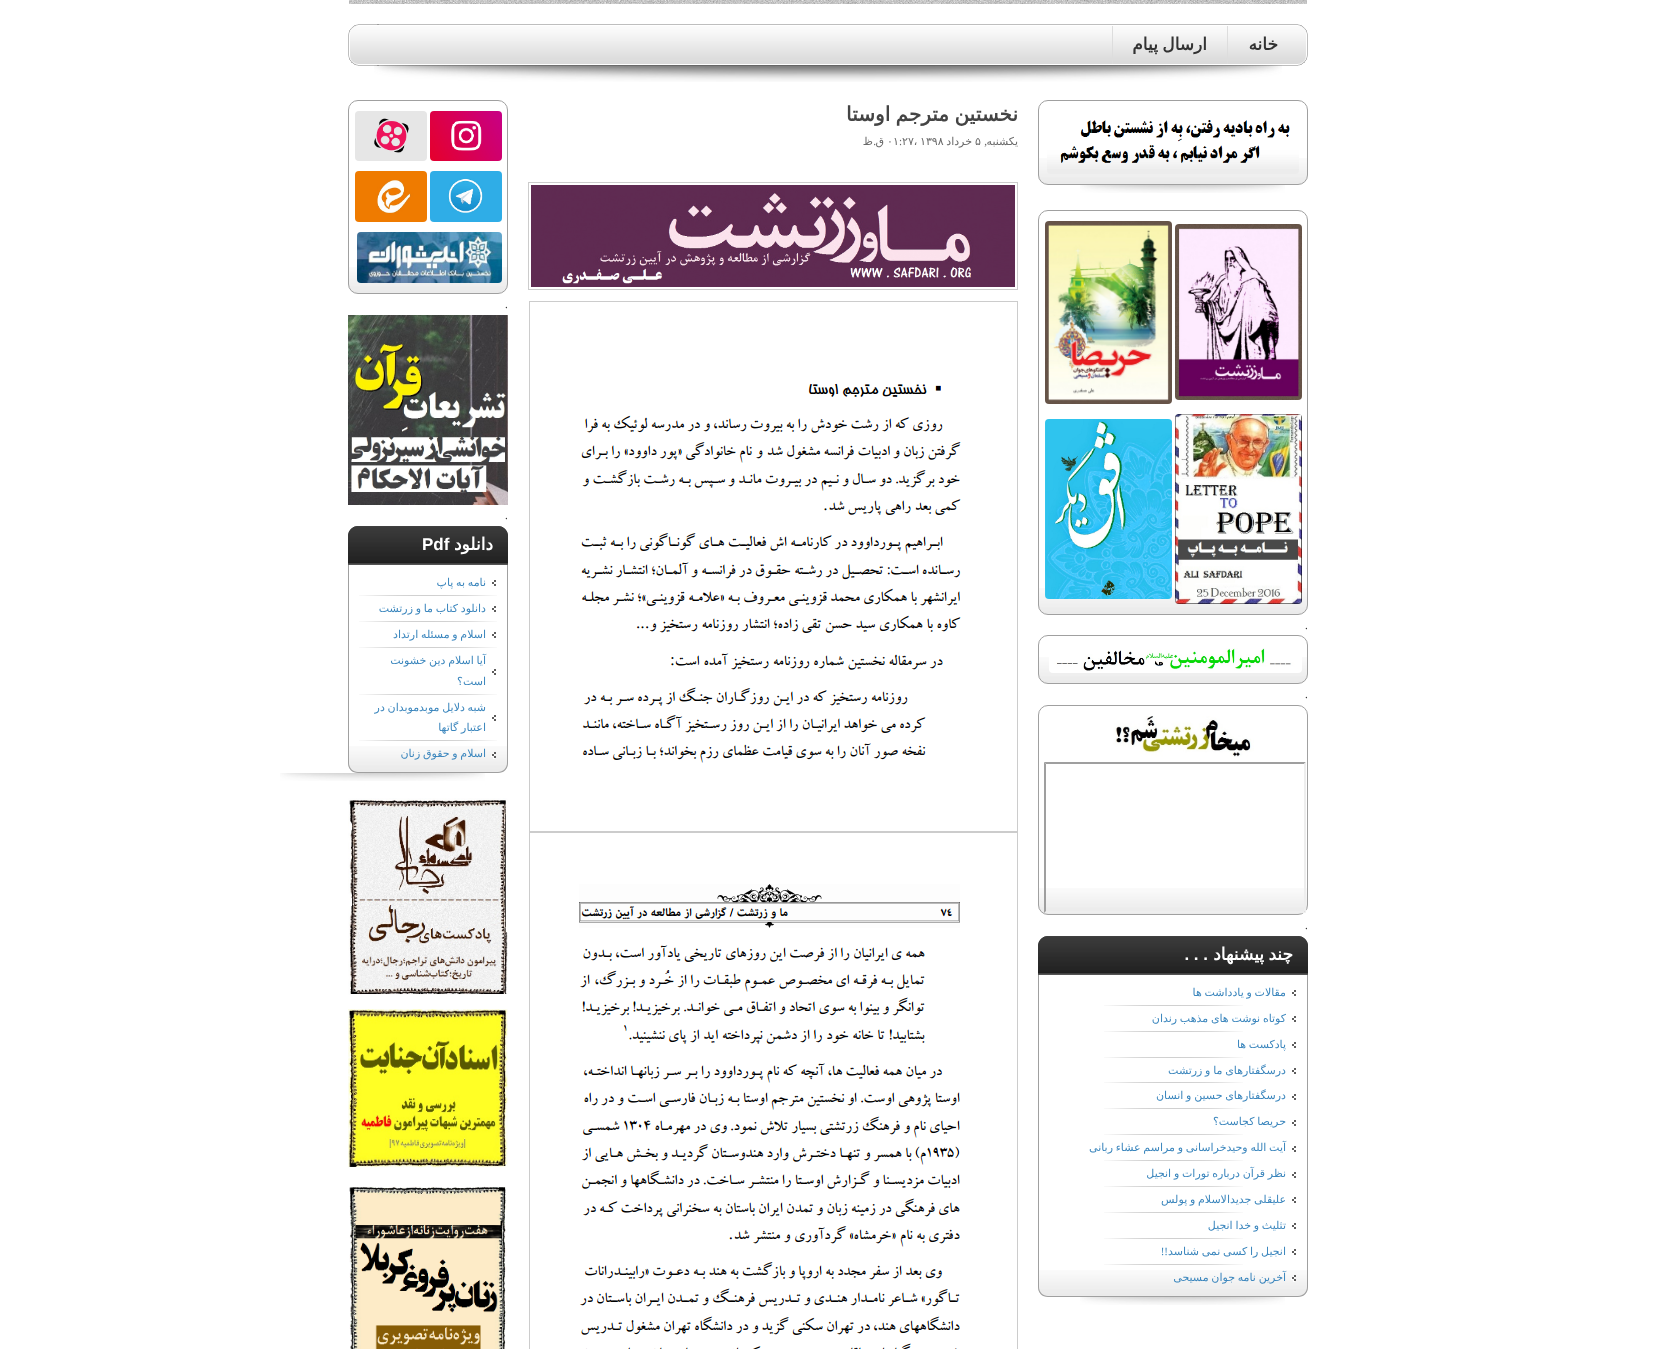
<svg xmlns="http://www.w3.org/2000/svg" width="1656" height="1349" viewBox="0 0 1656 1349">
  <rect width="100%" height="100%" fill="rgb(255,255,255)"/>
  <image x="349" y="0" width="958" height="4" href="pic1.png"/>
  <image x="348" y="24" width="960" height="42" href="pic2.png"/>
  <rect x="1227" y="26" width="1" height="38" fill="rgb(221,221,221)"/>
  <text x="1278" y="50" font-family="DejaVu Sans" font-size="17" font-weight="bold" direction="rtl" fill="rgb(51,51,51)">خانه</text>
  <rect x="1112" y="26" width="1" height="38" fill="rgb(221,221,221)"/>
  <text x="1207" y="50" word-spacing="-1" font-family="DejaVu Sans" font-size="17" font-weight="bold" direction="rtl" fill="rgb(51,51,51)">ارسال پیام</text>
  <image x="374" y="65" width="908" height="17" href="pic3.png"/>
  <text x="1018" y="121" word-spacing="-1" font-family="DejaVu Sans" font-size="20" font-weight="bold" direction="rtl" fill="rgb(68,68,68)">نخستین مترجم اوستا</text>
  <text x="1018" y="145" font-family="DejaVu Sans" font-size="11" direction="rtl" fill="rgb(105,105,105)">يكشنبه</text>
  <text x="987" y="145" font-family="Liberation Serif" font-size="11" direction="rtl" fill="rgb(105,105,105)">,</text>
  <text x="975" y="145" font-family="DejaVu Sans" font-size="11" fill="rgb(105,105,105)">۵</text>
  <text x="972" y="145" font-family="DejaVu Sans" font-size="11" direction="rtl" fill="rgb(105,105,105)">خرداد</text>
  <g font-family="DejaVu Sans" font-size="11" fill="rgb(105,105,105)">
    <text x="920" y="145">۱۳۹۸</text>
    <text x="902" y="145">۲۷،</text>
  </g>
  <text x="899" y="145" font-family="Liberation Serif" font-size="11" fill="rgb(105,105,105)">:</text>
  <text x="887" y="145" font-family="DejaVu Sans" font-size="11" fill="rgb(105,105,105)">۰۱</text>
  <text x="884" y="145" font-family="DejaVu Sans" font-size="11" direction="rtl" fill="rgb(105,105,105)">ق</text>
  <text x="876" y="145" font-family="Liberation Serif" font-size="11" direction="rtl" fill="rgb(105,105,105)">.</text>
  <text x="873" y="145" font-family="DejaVu Sans" font-size="11" direction="rtl" fill="rgb(105,105,105)">ظ</text>
  <rect x="528.5" y="182.5" width="489" height="107" fill="none" stroke="rgb(204,204,204)"/>
  <image x="531" y="185" width="484" height="102" href="pic4.png"/>
  <rect x="529.5" y="301.5" width="488" height="530" fill="none" stroke="rgb(204,204,204)"/>
  <image x="581" y="383" width="380" height="380" href="pic5.png"/>
  <rect x="529.5" y="832.5" width="488" height="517" fill="none" stroke="rgb(204,204,204)"/>
  <image x="579" y="884" width="381" height="465" href="pic6.png"/>
  <image x="348" y="267" width="160" height="26" href="pic7.png"/>
  <rect x="348.5" y="100.5" width="159" height="193" rx="9.5" fill="none" stroke="rgb(160,160,160)"/>
  <image x="430" y="111" width="72" height="50" href="pic8.png"/>
  <image x="355" y="111" width="72" height="50" href="pic9.png"/>
  <image x="430" y="171" width="72" height="51" href="pic10.png"/>
  <image x="355" y="171" width="72" height="51" href="pic11.png"/>
  <image x="357" y="232" width="145" height="51" href="pic12.png"/>
  <text x="505" y="308" font-family="Liberation Serif" font-size="11" fill="rgb(51,51,51)">.</text>
  <image x="348" y="315" width="160" height="190" href="pic13.png"/>
  <text x="505" y="519" font-family="Liberation Serif" font-size="11" fill="rgb(51,51,51)">.</text>
  <path d="M358 526H498C503.5 526 508 530.5 508 536V565H348V536C348 530.5 352.5 526 358 526Z" fill="rgb(46,46,46)"/>
  <image x="348" y="526" width="160" height="39" href="pic14.png"/>
  <text x="493" y="550" font-family="DejaVu Sans" font-size="17" font-weight="bold" direction="rtl" fill="rgb(255,255,255)">دانلود</text>
  <text x="422" y="550" font-family="Liberation Sans" font-size="17" font-weight="bold" fill="rgb(255,255,255)">Pdf</text>
  <image x="348" y="746" width="160" height="26" href="pic7.png"/>
  <path d="M348 565H508V763C508 769 504 773 498 773H358C352 773 348 769 348 763ZM349 565H507V763C507 768 503 772 498 772H358C353 772 349 768 349 763Z" fill="rgb(160,160,160)" fill-rule="evenodd"/>
  <image x="359" y="595" width="138" height="1" href="pic15.png"/>
  <image x="492" y="580" width="4" height="6" href="pic16.png"/>
  <text x="486" y="586" word-spacing="-0.75" font-family="DejaVu Sans" font-size="11" direction="rtl" fill="rgb(59,134,189)">نامه به پاپ</text>
  <image x="359" y="621" width="138" height="1" href="pic15.png"/>
  <image x="492" y="606" width="4" height="6" href="pic16.png"/>
  <text x="486" y="612" word-spacing="-0.75" font-family="DejaVu Sans" font-size="11" direction="rtl" fill="rgb(59,134,189)">دانلود کتاب ما و زرتشت</text>
  <image x="359" y="647" width="138" height="1" href="pic15.png"/>
  <image x="492" y="632" width="4" height="6" href="pic16.png"/>
  <text x="486" y="638" word-spacing="-0.75" font-family="DejaVu Sans" font-size="11" direction="rtl" fill="rgb(59,134,189)">اسلام و مسئله ارتداد</text>
  <image x="359" y="694" width="138" height="1" href="pic15.png"/>
  <image x="492" y="669" width="4" height="6" href="pic16.png"/>
  <g font-family="DejaVu Sans" font-size="11" direction="rtl" fill="rgb(59,134,189)">
    <text>
      <tspan x="486" y="664" word-spacing="-0.75">آیا اسلام دین خشونت</tspan>
      <tspan x="486" y="685">است؟</tspan>
    </text>
  </g>
  <image x="359" y="740" width="138" height="1" href="pic15.png"/>
  <image x="492" y="715" width="4" height="6" href="pic16.png"/>
  <g font-family="DejaVu Sans" font-size="11" direction="rtl" fill="rgb(59,134,189)">
    <text>
      <tspan x="486" y="711" word-spacing="-0.75">شبه دلایل موبدموبدان در</tspan>
      <tspan x="486" y="731" word-spacing="-0.75">اعتبار گاتها</tspan>
    </text>
  </g>
  <image x="491" y="752" width="5" height="7" href="pic17.png"/>
  <text x="486" y="757" word-spacing="-0.75" font-family="DejaVu Sans" font-size="11" direction="rtl" fill="rgb(59,134,189)">اسلام و حقوق زنان</text>
  <image x="280" y="773" width="205" height="8" href="pic18.png"/>
  <image x="348" y="798" width="160" height="197" href="pic19.png"/>
  <image x="348" y="1009" width="160" height="159" href="pic20.png"/>
  <image x="349" y="1186" width="158" height="163" href="pic21.png"/>
  <image x="1038" y="158" width="270" height="26" href="pic22.png"/>
  <rect x="1038.5" y="100.5" width="269" height="84" rx="9.5" fill="none" stroke="rgb(160,160,160)"/>
  <image x="1047" y="120" width="252" height="54" href="pic23.png"/>
  <image x="1080" y="185" width="205" height="8" href="pic18.png"/>
  <image x="1038" y="588" width="270" height="26" href="pic22.png"/>
  <rect x="1038.5" y="210.5" width="269" height="404" rx="9.5" fill="none" stroke="rgb(160,160,160)"/>
  <image x="1175" y="224" width="127" height="176" href="pic24.png"/>
  <image x="1045" y="221" width="127" height="183" href="pic25.png"/>
  <image x="1175" y="414" width="127" height="190" href="pic26.png"/>
  <image x="1045" y="419" width="127" height="180" href="pic27.png"/>
  <text x="1305" y="629" font-family="Liberation Serif" font-size="11" fill="rgb(51,51,51)">.</text>
  <image x="1038" y="657" width="270" height="26" href="pic22.png"/>
  <rect x="1038.5" y="635.5" width="269" height="48" rx="9.5" fill="none" stroke="rgb(160,160,160)"/>
  <image x="1049" y="648" width="253" height="25" href="pic28.png"/>
  <text x="1305" y="698" font-family="Liberation Serif" font-size="11" fill="rgb(51,51,51)">.</text>
  <image x="1038" y="888" width="270" height="26" href="pic22.png"/>
  <rect x="1038.5" y="705.5" width="269" height="209" rx="9.5" fill="none" stroke="rgb(160,160,160)"/>
  <image x="1113" y="716" width="141" height="41" href="pic29.png"/>
  <path d="M1044 762H1306L1304 764H1046Z" fill="rgb(159,159,159)"/>
  <path d="M1306 762V913L1304 911V764Z" fill="rgb(238,238,238)"/>
  <path d="M1306 913H1044L1046 911H1304Z" fill="rgb(238,238,238)"/>
  <path d="M1044 913V762L1046 764V911Z" fill="rgb(159,159,159)"/>
  <text x="1305" y="929" font-family="Liberation Serif" font-size="11" fill="rgb(51,51,51)">.</text>
  <path d="M1048 936H1298C1303.5 936 1308 940.5 1308 946V975H1038V946C1038 940.5 1042.5 936 1048 936Z" fill="rgb(46,46,46)"/>
  <image x="1038" y="936" width="270" height="39" href="pic30.png"/>
  <g font-family="DejaVu Sans" font-size="17" font-weight="bold" direction="rtl" fill="rgb(255,255,255)">
    <text x="1293" y="960">چند</text>
    <text x="1264" y="960">پیشنهاد</text>
  </g>
  <text x="1208" y="960" font-family="Liberation Sans" font-size="17" font-weight="bold" direction="rtl" fill="rgb(255,255,255)">. . .</text>
  <image x="1038" y="1270" width="270" height="26" href="pic22.png"/>
  <path d="M1038 975H1308V1287C1308 1293 1304 1297 1298 1297H1048C1042 1297 1038 1293 1038 1287ZM1039 975H1307V1287C1307 1292 1303 1296 1298 1296H1048C1043 1296 1039 1292 1039 1287Z" fill="rgb(160,160,160)" fill-rule="evenodd"/>
  <image x="1104" y="1005" width="139" height="1" href="pic31.png"/>
  <image x="1292" y="990" width="4" height="6" href="pic16.png"/>
  <text x="1286" y="996" word-spacing="-0.75" font-family="DejaVu Sans" font-size="11" direction="rtl" fill="rgb(59,134,189)">مقالات و یادداشت ها</text>
  <image x="1104" y="1031" width="139" height="1" href="pic31.png"/>
  <image x="1292" y="1016" width="4" height="6" href="pic16.png"/>
  <text x="1286" y="1022" word-spacing="-0.75" font-family="DejaVu Sans" font-size="11" direction="rtl" fill="rgb(59,134,189)">کوتاه نوشت های مذهب رندان</text>
  <image x="1104" y="1057" width="139" height="1" href="pic31.png"/>
  <image x="1292" y="1042" width="4" height="6" href="pic16.png"/>
  <text x="1286" y="1048" word-spacing="-0.75" font-family="DejaVu Sans" font-size="11" direction="rtl" fill="rgb(59,134,189)">پادکست ها</text>
  <image x="1104" y="1082" width="139" height="1" href="pic31.png"/>
  <image x="1292" y="1068" width="4" height="6" href="pic16.png"/>
  <text x="1286" y="1074" word-spacing="-0.75" font-family="DejaVu Sans" font-size="11" direction="rtl" fill="rgb(59,134,189)">درسگفتارهای ما و زرتشت</text>
  <image x="1104" y="1108" width="139" height="1" href="pic31.png"/>
  <image x="1292" y="1094" width="4" height="6" href="pic16.png"/>
  <text x="1286" y="1099" word-spacing="-0.75" font-family="DejaVu Sans" font-size="11" direction="rtl" fill="rgb(59,134,189)">درسگفتارهای حسین و انسان</text>
  <image x="1104" y="1134" width="139" height="1" href="pic31.png"/>
  <image x="1292" y="1120" width="4" height="6" href="pic16.png"/>
  <text x="1286" y="1125" word-spacing="-0.75" font-family="DejaVu Sans" font-size="11" direction="rtl" fill="rgb(59,134,189)">حریصا کجاست؟</text>
  <image x="1104" y="1160" width="139" height="1" href="pic31.png"/>
  <image x="1292" y="1146" width="4" height="6" href="pic16.png"/>
  <text x="1286" y="1151" word-spacing="-0.75" font-family="DejaVu Sans" font-size="11" direction="rtl" fill="rgb(59,134,189)">آیت الله وحیدخراسانی و مراسم عشاء ربانی</text>
  <image x="1104" y="1186" width="139" height="1" href="pic31.png"/>
  <image x="1292" y="1172" width="4" height="6" href="pic16.png"/>
  <text x="1286" y="1177" word-spacing="-0.75" font-family="DejaVu Sans" font-size="11" direction="rtl" fill="rgb(59,134,189)">نظر قرآن درباره تورات و انجیل</text>
  <image x="1104" y="1212" width="139" height="1" href="pic31.png"/>
  <image x="1292" y="1197" width="4" height="6" href="pic16.png"/>
  <text x="1286" y="1203" word-spacing="-0.75" font-family="DejaVu Sans" font-size="11" direction="rtl" fill="rgb(59,134,189)">علیقلی جدیدالاسلام و پولس</text>
  <image x="1104" y="1238" width="139" height="1" href="pic31.png"/>
  <image x="1292" y="1223" width="4" height="6" href="pic16.png"/>
  <text x="1286" y="1229" word-spacing="-0.75" font-family="DejaVu Sans" font-size="11" direction="rtl" fill="rgb(59,134,189)">تثلیث و خدا انجیل</text>
  <image x="1104" y="1264" width="139" height="1" href="pic31.png"/>
  <image x="1292" y="1249" width="4" height="6" href="pic16.png"/>
  <text x="1286" y="1255" word-spacing="-0.75" font-family="DejaVu Sans" font-size="11" direction="rtl" fill="rgb(59,134,189)">انجیل را کسی نمی شناسد</text>
  <text x="1168" y="1255" font-family="Liberation Serif" font-size="11" direction="rtl" fill="rgb(59,134,189)">!!</text>
  <image x="1291" y="1275" width="5" height="7" href="pic32.png"/>
  <text x="1286" y="1281" word-spacing="-0.75" font-family="DejaVu Sans" font-size="11" direction="rtl" fill="rgb(59,134,189)">آخرین نامه جوان مسیحی</text>
  <image x="1080" y="1297" width="205" height="8" href="pic18.png"/>
</svg>
